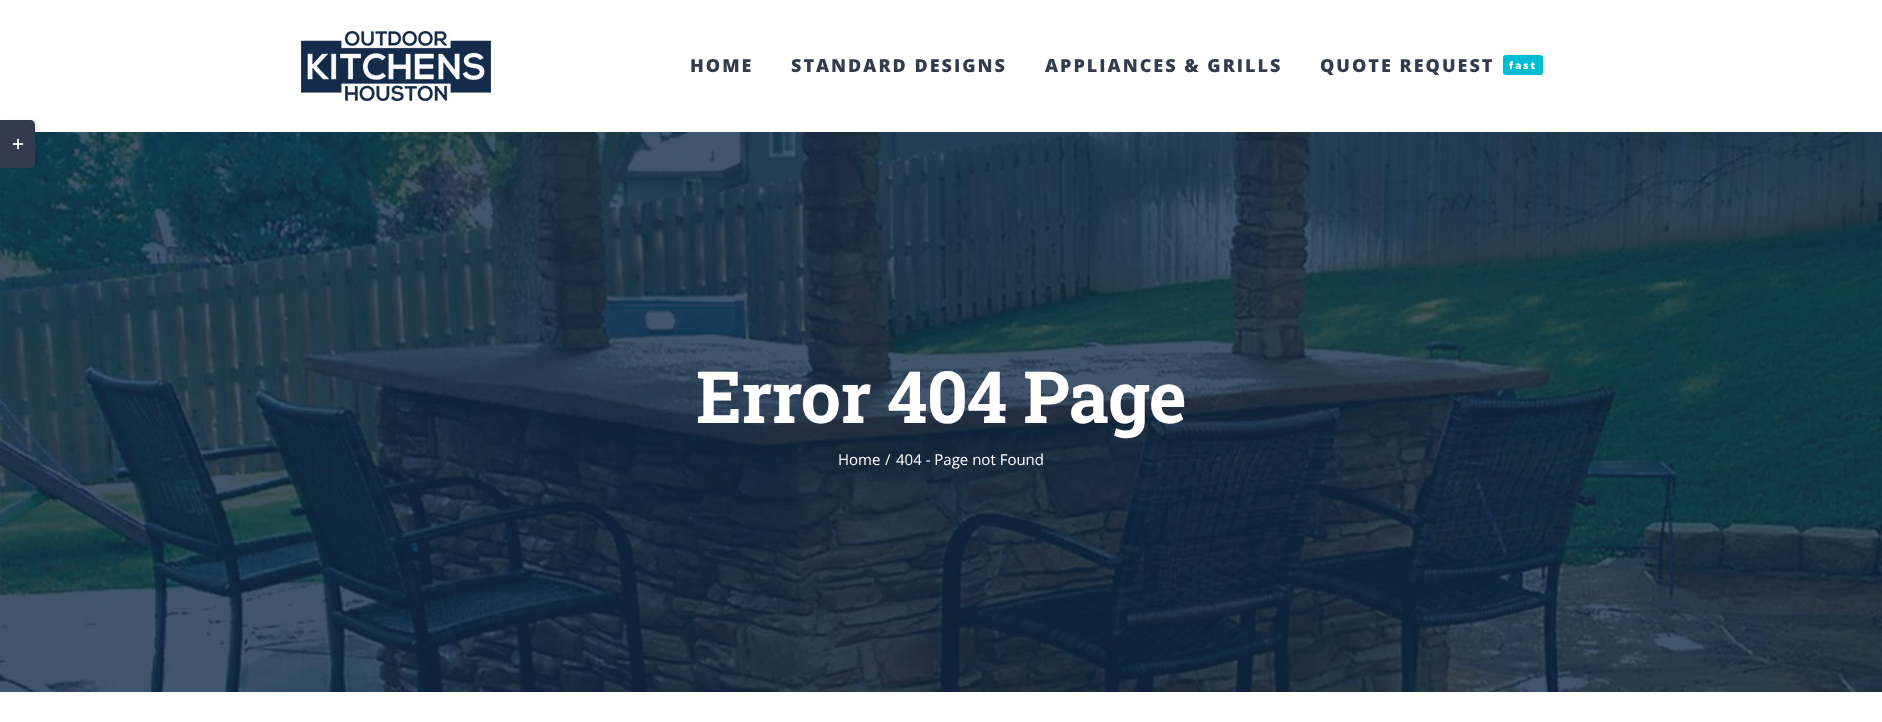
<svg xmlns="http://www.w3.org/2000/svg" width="1882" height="722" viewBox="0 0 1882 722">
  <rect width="100%" height="100%" fill="rgb(255,255,255)"/>
  <image x="301" y="31" width="190" height="70" href="pic1.png"/>
  <g font-family="Open Sans" font-size="18" font-weight="800" letter-spacing="2" fill="rgb(51,60,78)">
    <text x="690" y="72">HOME</text>
    <text x="791" y="72">STANDARD DESIGNS</text>
    <text x="1045" y="72">APPLIANCES &amp; GRILLS</text>
    <text x="1320" y="72">QUOTE REQUEST</text>
  </g>
  <rect x="1503" y="55" width="40" height="20" rx="3" fill="rgb(0,188,212)"/>
  <text x="1509" y="69" font-family="Open Sans" font-size="10" font-weight="800" letter-spacing="2" fill="rgb(255,255,255)">fast</text>
  <image x="0" y="132" width="1882" height="560" href="pic3.png"/>
  <rect x="5" y="122" width="31" height="44" rx="3" fill="rgba(0,0,0,0.14)" filter="blur(2.5px)"/>
  <path d="M0 120H30C33 120 35 122 35 125V163C35 166 33 168 30 168H0Z" fill="rgb(51,60,78)"/>
  <image x="12" y="138" width="12" height="12" href="pic2.png"/>
  <text x="696" y="423" font-family="Roboto Slab" font-size="72" font-weight="bold" letter-spacing="-1" fill="rgb(255,255,255)">Error 404 Page</text>
  <g font-family="Open Sans" font-size="15" fill="rgb(255,255,255)">
    <text x="838" y="465">Home</text>
    <text x="885" y="465">/</text>
    <text x="896" y="465">404 - Page not Found</text>
  </g>
</svg>
